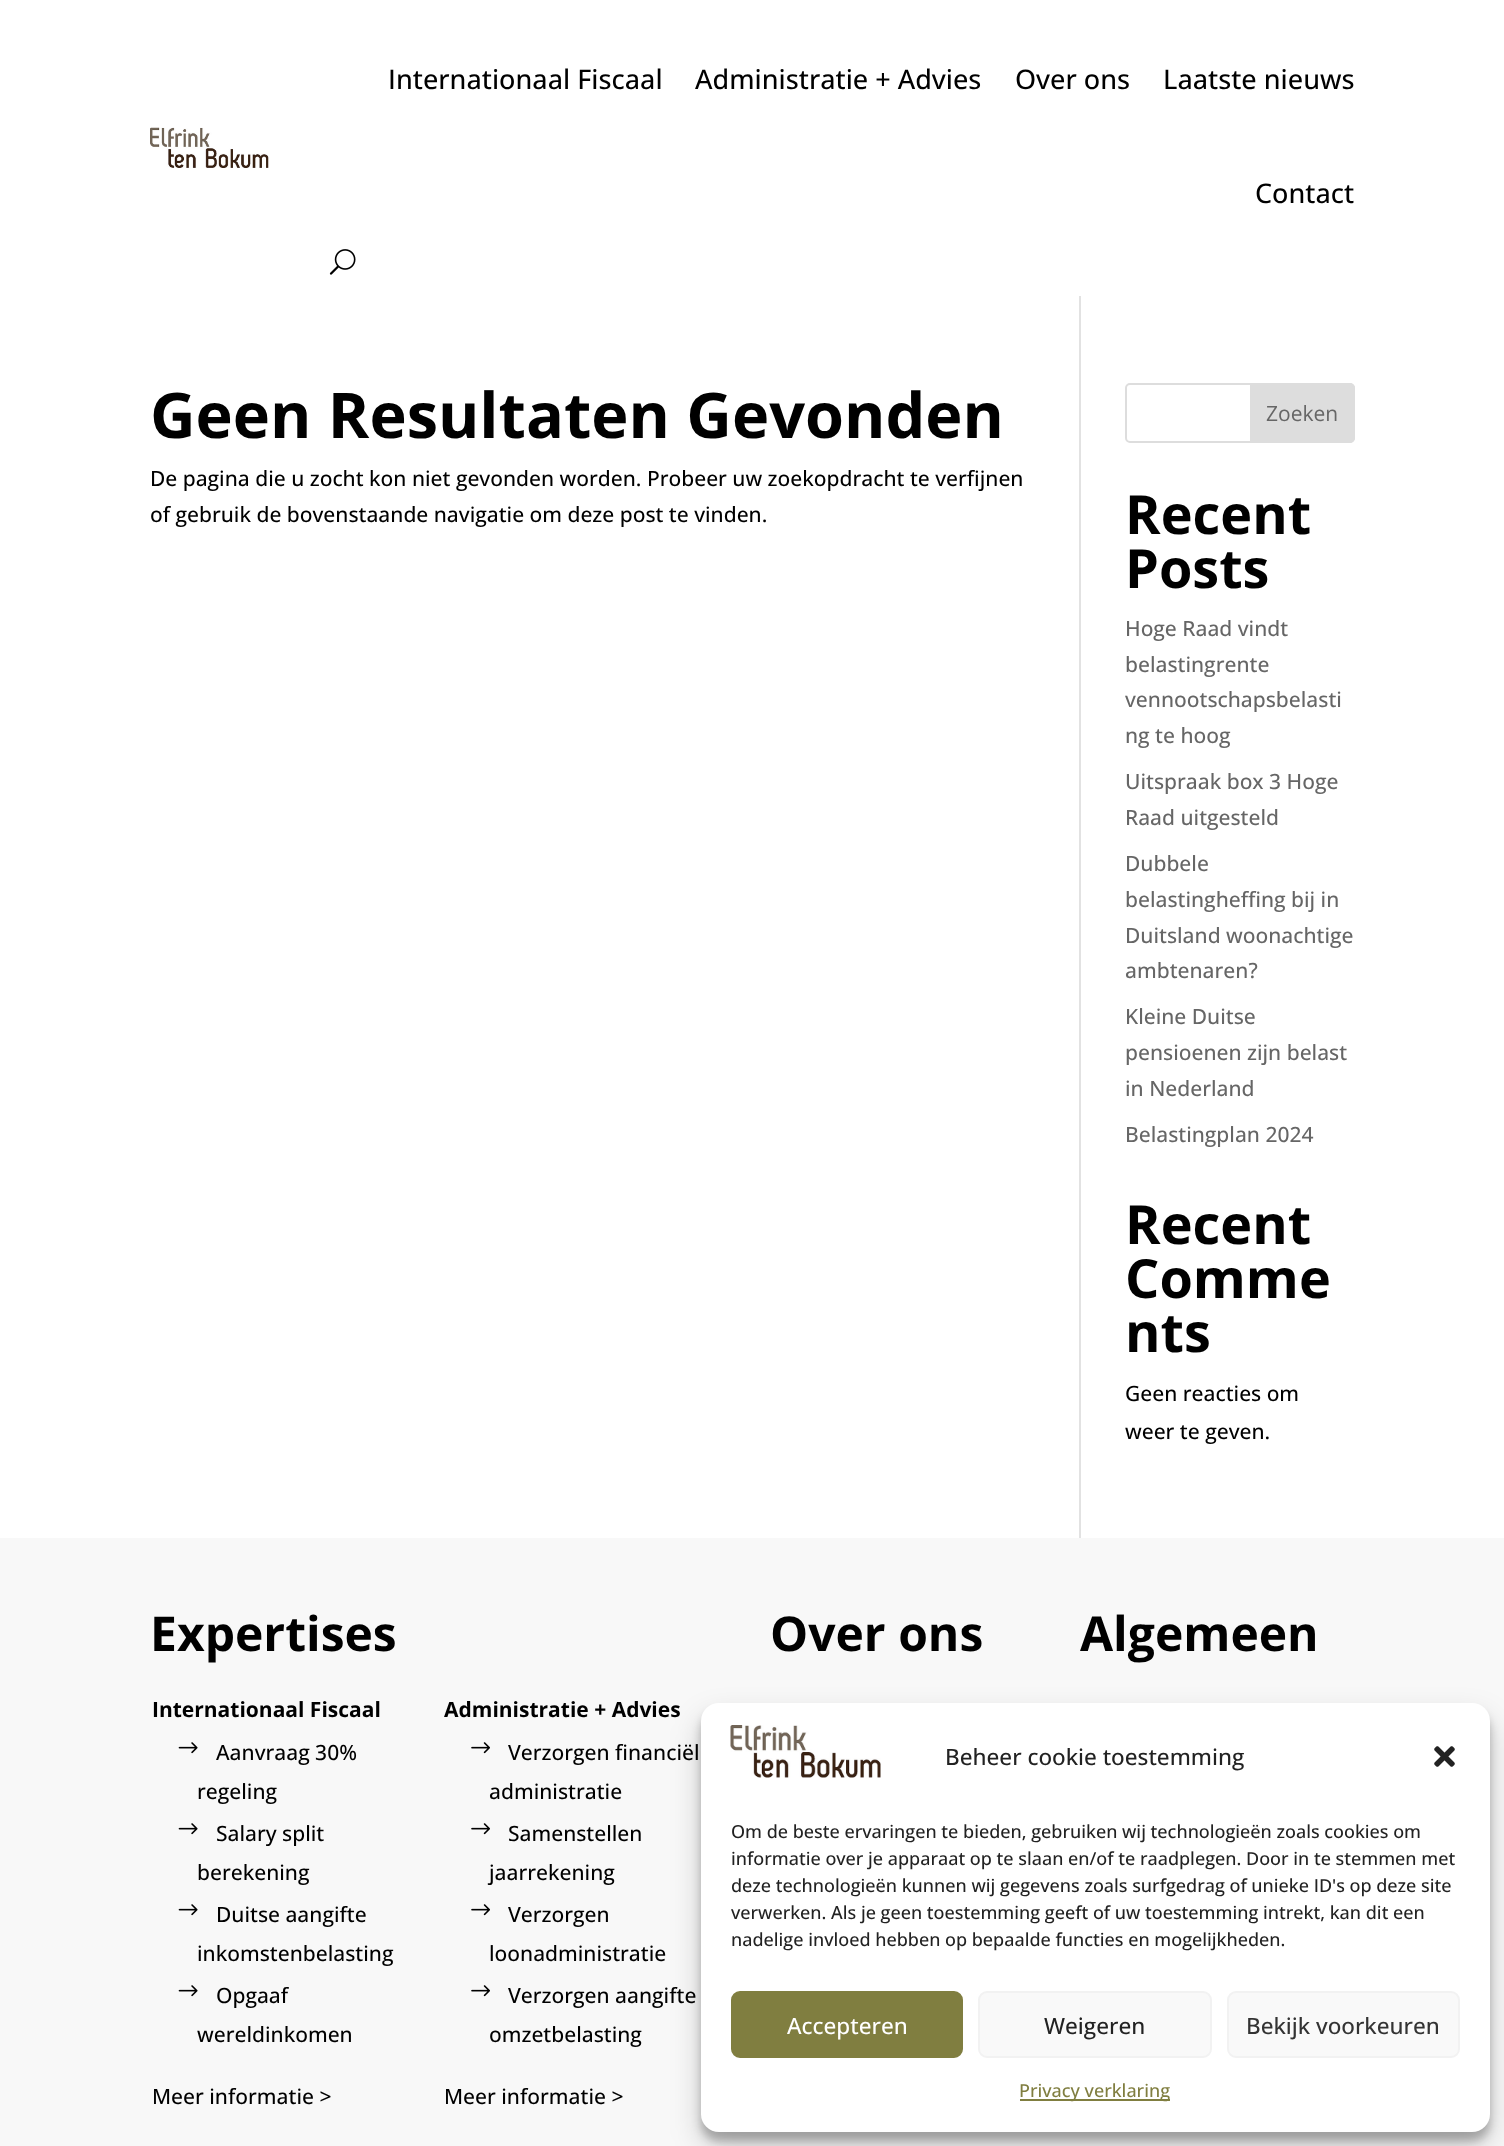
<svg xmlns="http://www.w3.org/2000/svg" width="1504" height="2146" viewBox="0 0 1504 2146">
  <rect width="100%" height="100%" fill="rgb(255,255,255)"/>
  <image x="150" y="127" width="119" height="41" href="pic1.png"/>
  <g font-family="Open Sans" font-size="27" font-weight="500" fill="rgb(0,0,0)">
    <text x="388" y="89">Internationaal Fiscaal</text>
    <text x="695" y="89">Administratie + Advies</text>
    <text x="1015" y="89">Over ons</text>
    <text x="1163" y="89">Laatste nieuws</text>
    <text x="1255" y="203">Contact</text>
  </g>
  <image x="329" y="249" width="27" height="26" href="pic2.png"/>
  <rect x="1079" y="296" width="2" height="1242" fill="rgb(226,226,226)"/>
  <text x="150" y="438" font-family="Open Sans" font-size="63" font-weight="bold" fill="rgb(0,0,0)">Geen Resultaten Gevonden</text>
  <g font-family="Open Sans" font-size="21" font-weight="500" fill="rgb(0,0,0)">
    <text>
      <tspan x="150" y="486">De pagina die u zocht kon niet gevonden worden. Probeer uw zoekopdracht te verfijnen</tspan>
      <tspan x="150" y="522">of gebruik de bovenstaande navigatie om deze post te vinden.</tspan>
    </text>
  </g>
  <rect x="1126" y="384" width="228" height="58" rx="4" fill="none" stroke="rgb(221,221,221)" stroke-width="2"/>
  <path d="M1251 384H1350C1352 384 1354 386 1354 388V438C1354 440 1352 442 1350 442H1251Z" fill="rgb(221,221,221)" stroke="rgb(221,221,221)" stroke-width="2"/>
  <text x="1266" y="421" font-family="Open Sans" font-size="21" fill="rgb(102,102,102)">Zoeken</text>
  <g font-family="Open Sans" font-size="54" font-weight="bold" fill="rgb(0,0,0)">
    <text>
      <tspan x="1125" y="534">Recent</tspan>
      <tspan x="1125" y="588">Posts</tspan>
    </text>
  </g>
  <g font-family="Open Sans" font-size="21" font-weight="500" fill="rgb(102,102,102)">
    <text>
      <tspan x="1125" y="636">Hoge Raad vindt</tspan>
      <tspan x="1125" y="672">belastingrente</tspan>
      <tspan x="1125" y="707">vennootschapsbelasti</tspan>
      <tspan x="1125" y="743">ng te hoog</tspan>
    </text>
    <text>
      <tspan x="1125" y="789">Uitspraak box 3 Hoge</tspan>
      <tspan x="1125" y="825">Raad uitgesteld</tspan>
    </text>
    <text>
      <tspan x="1125" y="871">Dubbele</tspan>
      <tspan x="1125" y="907">belastingheffing bij in</tspan>
      <tspan x="1125" y="943">Duitsland woonachtige</tspan>
      <tspan x="1125" y="978">ambtenaren?</tspan>
    </text>
    <text>
      <tspan x="1125" y="1024">Kleine Duitse</tspan>
      <tspan x="1125" y="1060">pensioenen zijn belast</tspan>
      <tspan x="1125" y="1096">in Nederland</tspan>
    </text>
    <text x="1125" y="1142">Belastingplan 2024</text>
  </g>
  <g font-family="Open Sans" font-size="54" font-weight="bold" fill="rgb(0,0,0)">
    <text>
      <tspan x="1125" y="1244">Recent</tspan>
      <tspan x="1125" y="1298">Comme</tspan>
      <tspan x="1125" y="1352">nts</tspan>
    </text>
  </g>
  <g font-family="Open Sans" font-size="21" font-weight="500" fill="rgb(0,0,0)">
    <text>
      <tspan x="1125" y="1401">Geen reacties om</tspan>
      <tspan x="1125" y="1439">weer te geven.</tspan>
    </text>
  </g>
  <rect x="0" y="1538" width="1504" height="608" fill="rgb(248,248,248)"/>
  <text x="150" y="1651" font-family="Open Sans" font-size="48" font-weight="bold" fill="rgb(0,0,0)">Expertises</text>
  <g font-family="Open Sans" font-size="21" font-weight="bold" fill="rgb(0,0,0)">
    <text x="152" y="1717">Internationaal Fiscaal</text>
    <text x="444" y="1717">Administratie + Advies</text>
  </g>
  <image x="178" y="1742" width="20" height="12" href="pic3.png"/>
  <g font-family="Open Sans" font-size="21" font-weight="500" fill="rgb(0,0,0)">
    <text x="216" y="1760">Aanvraag 30%</text>
    <text x="197" y="1799">regeling</text>
  </g>
  <image x="178" y="1823" width="20" height="12" href="pic3.png"/>
  <g font-family="Open Sans" font-size="21" font-weight="500" fill="rgb(0,0,0)">
    <text x="216" y="1841">Salary split</text>
    <text x="197" y="1880">berekening</text>
  </g>
  <image x="178" y="1904" width="20" height="12" href="pic3.png"/>
  <g font-family="Open Sans" font-size="21" font-weight="500" fill="rgb(0,0,0)">
    <text x="216" y="1922">Duitse aangifte</text>
    <text x="197" y="1961">inkomstenbelasting</text>
  </g>
  <image x="178" y="1985" width="20" height="12" href="pic3.png"/>
  <g font-family="Open Sans" font-size="21" font-weight="500" fill="rgb(0,0,0)">
    <text x="216" y="2003">Opgaaf</text>
    <text x="197" y="2042">wereldinkomen</text>
  </g>
  <image x="471" y="1742" width="19" height="12" href="pic4.png"/>
  <g font-family="Open Sans" font-size="21" font-weight="500" fill="rgb(0,0,0)">
    <text x="508" y="1760">Verzorgen financiël</text>
    <text x="489" y="1799">administratie</text>
  </g>
  <image x="471" y="1823" width="19" height="12" href="pic4.png"/>
  <g font-family="Open Sans" font-size="21" font-weight="500" fill="rgb(0,0,0)">
    <text x="508" y="1841">Samenstellen</text>
    <text x="489" y="1880">jaarrekening</text>
  </g>
  <image x="471" y="1904" width="19" height="12" href="pic4.png"/>
  <g font-family="Open Sans" font-size="21" font-weight="500" fill="rgb(0,0,0)">
    <text x="508" y="1922">Verzorgen</text>
    <text x="489" y="1961">loonadministratie</text>
  </g>
  <image x="471" y="1985" width="19" height="12" href="pic4.png"/>
  <g font-family="Open Sans" font-size="21" font-weight="500" fill="rgb(0,0,0)">
    <text x="508" y="2003">Verzorgen aangifte</text>
    <text x="489" y="2042">omzetbelasting</text>
    <text x="152" y="2104">Meer informatie &gt;</text>
    <text x="444" y="2104">Meer informatie &gt;</text>
  </g>
  <g font-family="Open Sans" font-size="48" font-weight="bold" fill="rgb(0,0,0)">
    <text x="770" y="1651">Over ons</text>
    <text x="1080" y="1651">Algemeen</text>
  </g>
  <rect x="701" y="1712" width="789" height="429" rx="18" fill="rgba(0,0,0,0.23)" filter="blur(4.5px)"/>
  <rect x="701" y="1718" width="789" height="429" rx="18" fill="rgba(0,0,0,0.19)" filter="blur(15px)"/>
  <rect x="701" y="1703" width="789" height="429" rx="18" fill="rgb(255,255,255)"/>
  <image x="730" y="1725" width="151" height="53" href="pic5.png"/>
  <text x="945" y="1765" font-family="Open Sans" font-size="22.5" font-weight="500" fill="rgb(34,34,34)">Beheer cookie toestemming</text>
  <image x="1434" y="1746" width="21" height="21" href="pic6.png"/>
  <g font-family="Open Sans" font-size="18" font-weight="500" fill="rgb(34,34,34)">
    <text>
      <tspan x="731" y="1838">Om de beste ervaringen te bieden, gebruiken wij technologieën zoals cookies om</tspan>
      <tspan x="731" y="1865">informatie over je apparaat op te slaan en/of te raadplegen. Door in te stemmen met</tspan>
      <tspan x="731" y="1892">deze technologieën kunnen wij gegevens zoals surfgedrag of unieke ID's op deze site</tspan>
      <tspan x="731" y="1919">verwerken. Als je geen toestemming geeft of uw toestemming intrekt, kan dit een</tspan>
      <tspan x="731" y="1946">nadelige invloed hebben op bepaalde functies en mogelijkheden.</tspan>
    </text>
  </g>
  <rect x="732" y="1992" width="230" height="65" rx="8" fill="rgb(128,126,64)" stroke="rgb(128,126,64)" stroke-width="2"/>
  <text x="787" y="2034" font-family="Open Sans" font-size="22.5" font-weight="500" fill="rgb(255,255,255)">Accepteren</text>
  <rect x="979" y="1992" width="232" height="65" rx="8" fill="rgb(249,249,249)" stroke="rgb(242,242,242)" stroke-width="2"/>
  <text x="1044" y="2034" font-family="Open Sans" font-size="22.5" font-weight="500" fill="rgb(34,34,34)">Weigeren</text>
  <rect x="1228" y="1992" width="231" height="65" rx="8" fill="rgb(249,249,249)" stroke="rgb(242,242,242)" stroke-width="2"/>
  <text x="1246" y="2034" font-family="Open Sans" font-size="22.5" font-weight="500" fill="rgb(51,51,51)">Bekijk voorkeuren</text>
  <rect x="1020" y="2099" width="150" height="2" fill="rgb(128,126,64)"/>
  <text x="1019" y="2097" font-family="Open Sans" font-size="18" font-weight="500" fill="rgb(128,126,64)">Privacy verklaring</text>
</svg>
